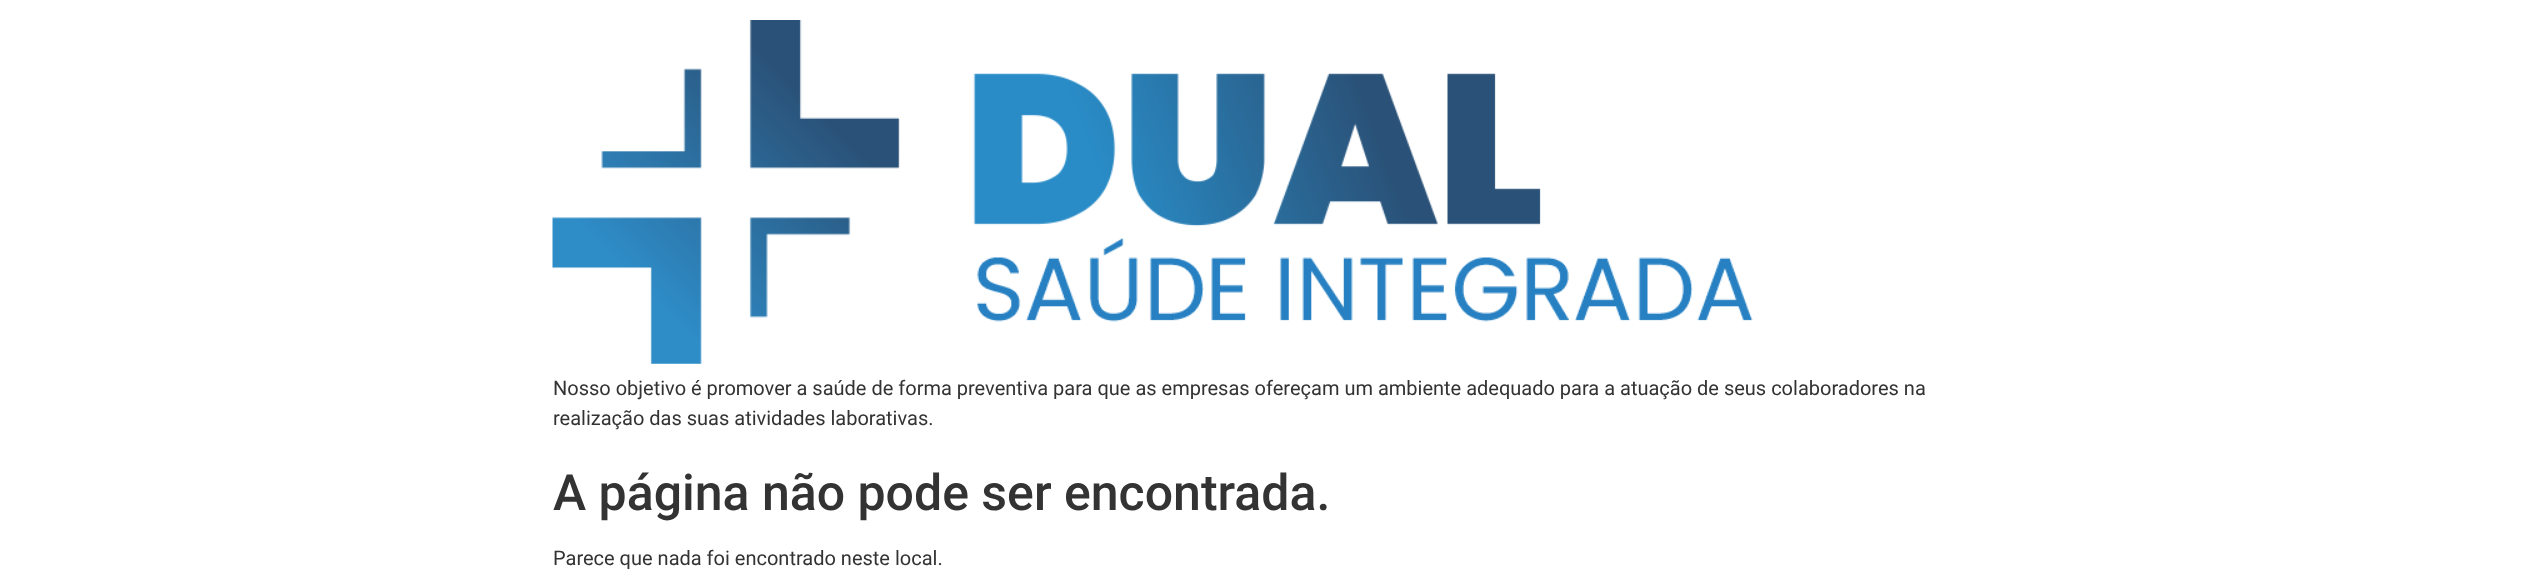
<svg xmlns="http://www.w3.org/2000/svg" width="2529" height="584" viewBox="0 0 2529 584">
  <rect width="100%" height="100%" fill="rgb(255,255,255)"/>
  <image x="552" y="20" width="1201" height="344" href="pic1.png"/>
  <g font-family="Roboto" font-size="20" fill="rgb(51,51,51)">
    <text>
      <tspan x="553" y="395">Nosso objetivo é promover a saúde de forma preventiva para que as empresas ofereçam um ambiente adequado para a atuação de seus colaboradores na</tspan>
      <tspan x="553" y="425">realização das suas atividades laborativas.</tspan>
    </text>
  </g>
  <text x="553" y="510" font-family="Roboto" font-size="50" font-weight="500" fill="rgb(51,51,51)">A página não pode ser encontrada.</text>
  <text x="553" y="565" font-family="Roboto" font-size="20" fill="rgb(51,51,51)">Parece que nada foi encontrado neste local.</text>
</svg>
